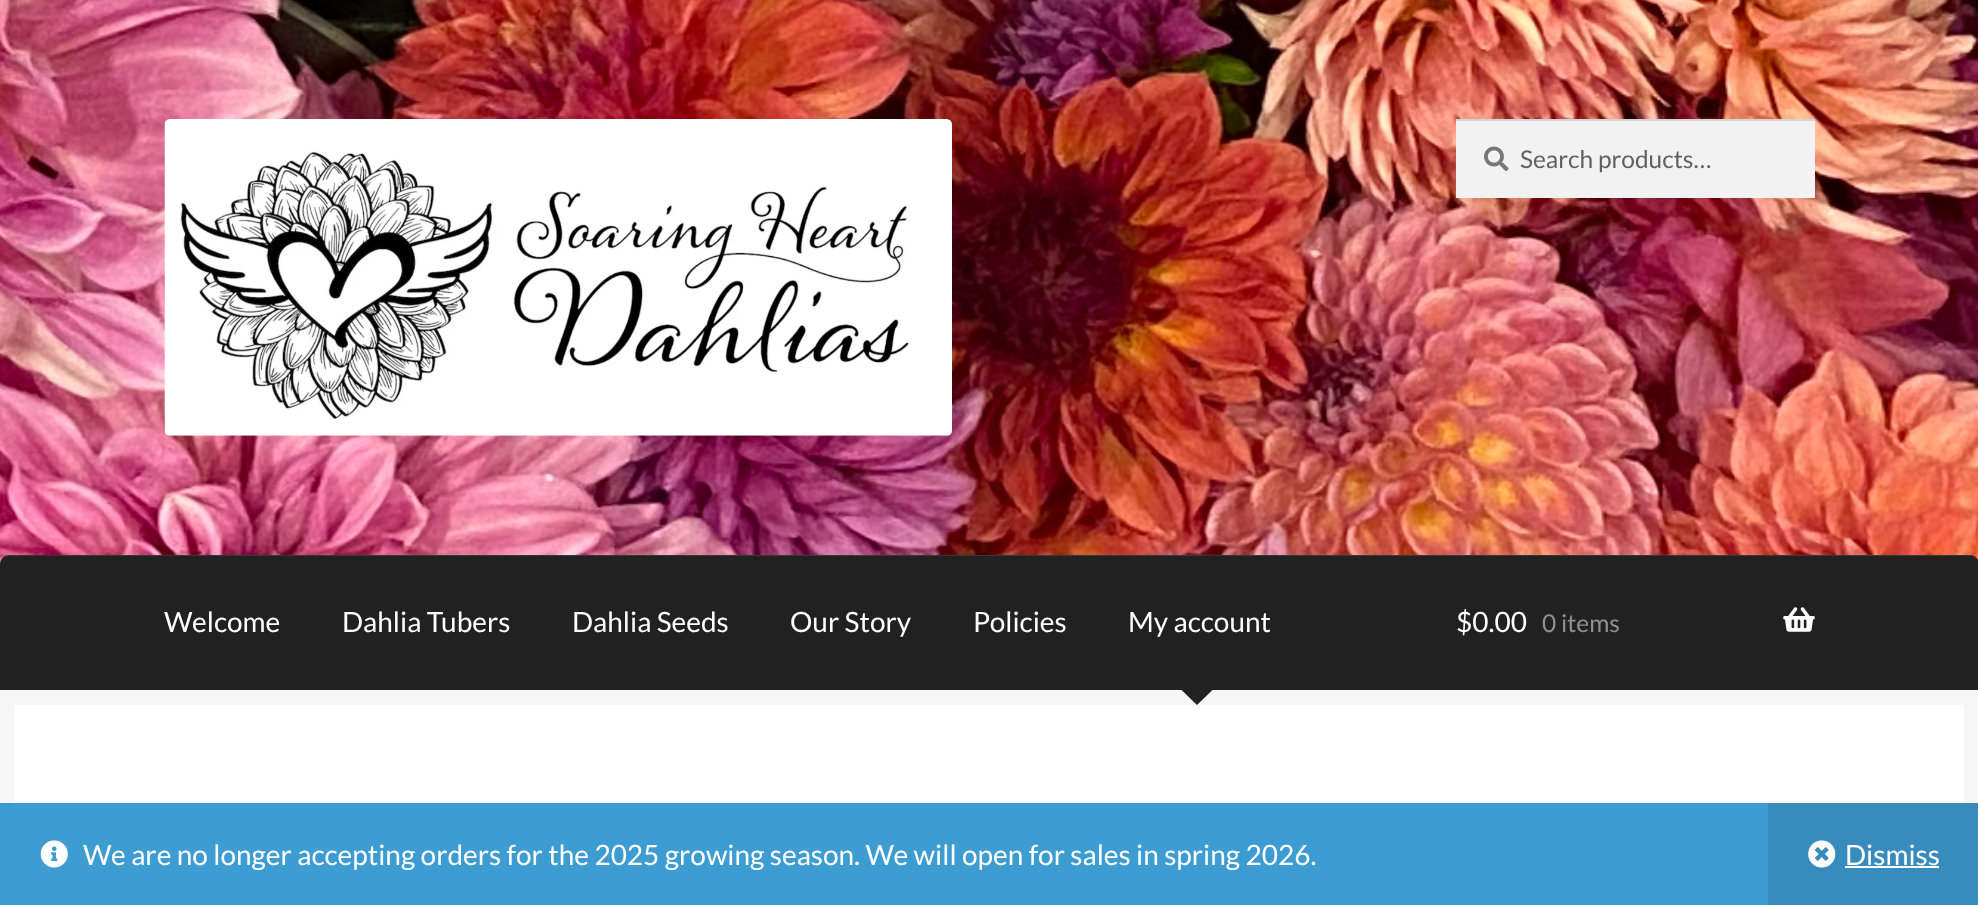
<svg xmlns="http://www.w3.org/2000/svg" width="1978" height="905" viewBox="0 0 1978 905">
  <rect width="100%" height="100%" fill="rgb(255,255,255)"/>
  <image x="0" y="0" width="1978" height="564" href="pic1.png"/>
  <image x="164" y="119" width="788" height="317" href="pic2.png"/>
  <rect x="1456" y="121" width="359" height="77" fill="rgb(242,242,242)"/>
  <image x="1484" y="146" width="25" height="25" href="pic3.png"/>
  <rect x="1456" y="119" width="359" height="2" fill="rgb(212,212,212)"/>
  <text x="1520" y="168" font-family="Lato" font-size="24.5" fill="rgb(97,97,97)">Search products…</text>
  <path d="M9 555H1970C1975 555 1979 559 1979 564V690H0V564C0 559 4 555 9 555Z" fill="rgb(33,33,33)"/>
  <path d="M9 556H1970C1975 556 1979 561 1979 566C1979 560 1976 555 1970 555H9C3 555 0 560 0 566C0 561 4 556 9 556Z" fill="rgba(255,255,255,0.1)"/>
  <g font-family="Lato" font-size="28" fill="rgb(255,255,255)">
    <text x="164" y="632">Welcome</text>
    <text x="342" y="632">Dahlia Tubers</text>
    <text x="572" y="632">Dahlia Seeds</text>
    <text x="790" y="632">Our Story</text>
    <text x="973" y="632">Policies</text>
    <text x="1128" y="632">My account</text>
  </g>
  <rect x="7.5" y="697.5" width="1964" height="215" fill="none" stroke="rgb(246,246,246)" stroke-width="15"/>
  <path d="M1181 689.5H1213L1197 705Z" fill="rgb(33,33,33)"/>
  <text x="1456" y="632" font-family="Lato" font-size="28" fill="rgb(255,255,255)">$0.00</text>
  <text x="1542" y="632" font-family="Lato" font-size="24.5" fill="rgb(144,144,144)">0 items</text>
  <image x="1783" y="607" width="32" height="25" href="pic4.png"/>
  <rect x="0" y="803" width="1768" height="102" fill="rgb(61,156,210)"/>
  <image x="40" y="840" width="28" height="28" href="pic5.png"/>
  <text x="83" y="865" font-family="Lato" font-size="28" fill="rgb(255,255,255)">We are no longer accepting orders for the 2025 growing season. We will open for sales in spring 2026.</text>
  <rect x="1768" y="803" width="210" height="102" fill="rgb(55,140,189)"/>
  <image x="1808" y="840" width="28" height="28" href="pic6.png"/>
  <text x="1845" y="865" font-family="Lato" font-size="28" fill="rgb(255,255,255)">Dismiss</text>
  <rect x="1845" y="866" width="94" height="2" fill="rgb(255,255,255)"/>
</svg>
